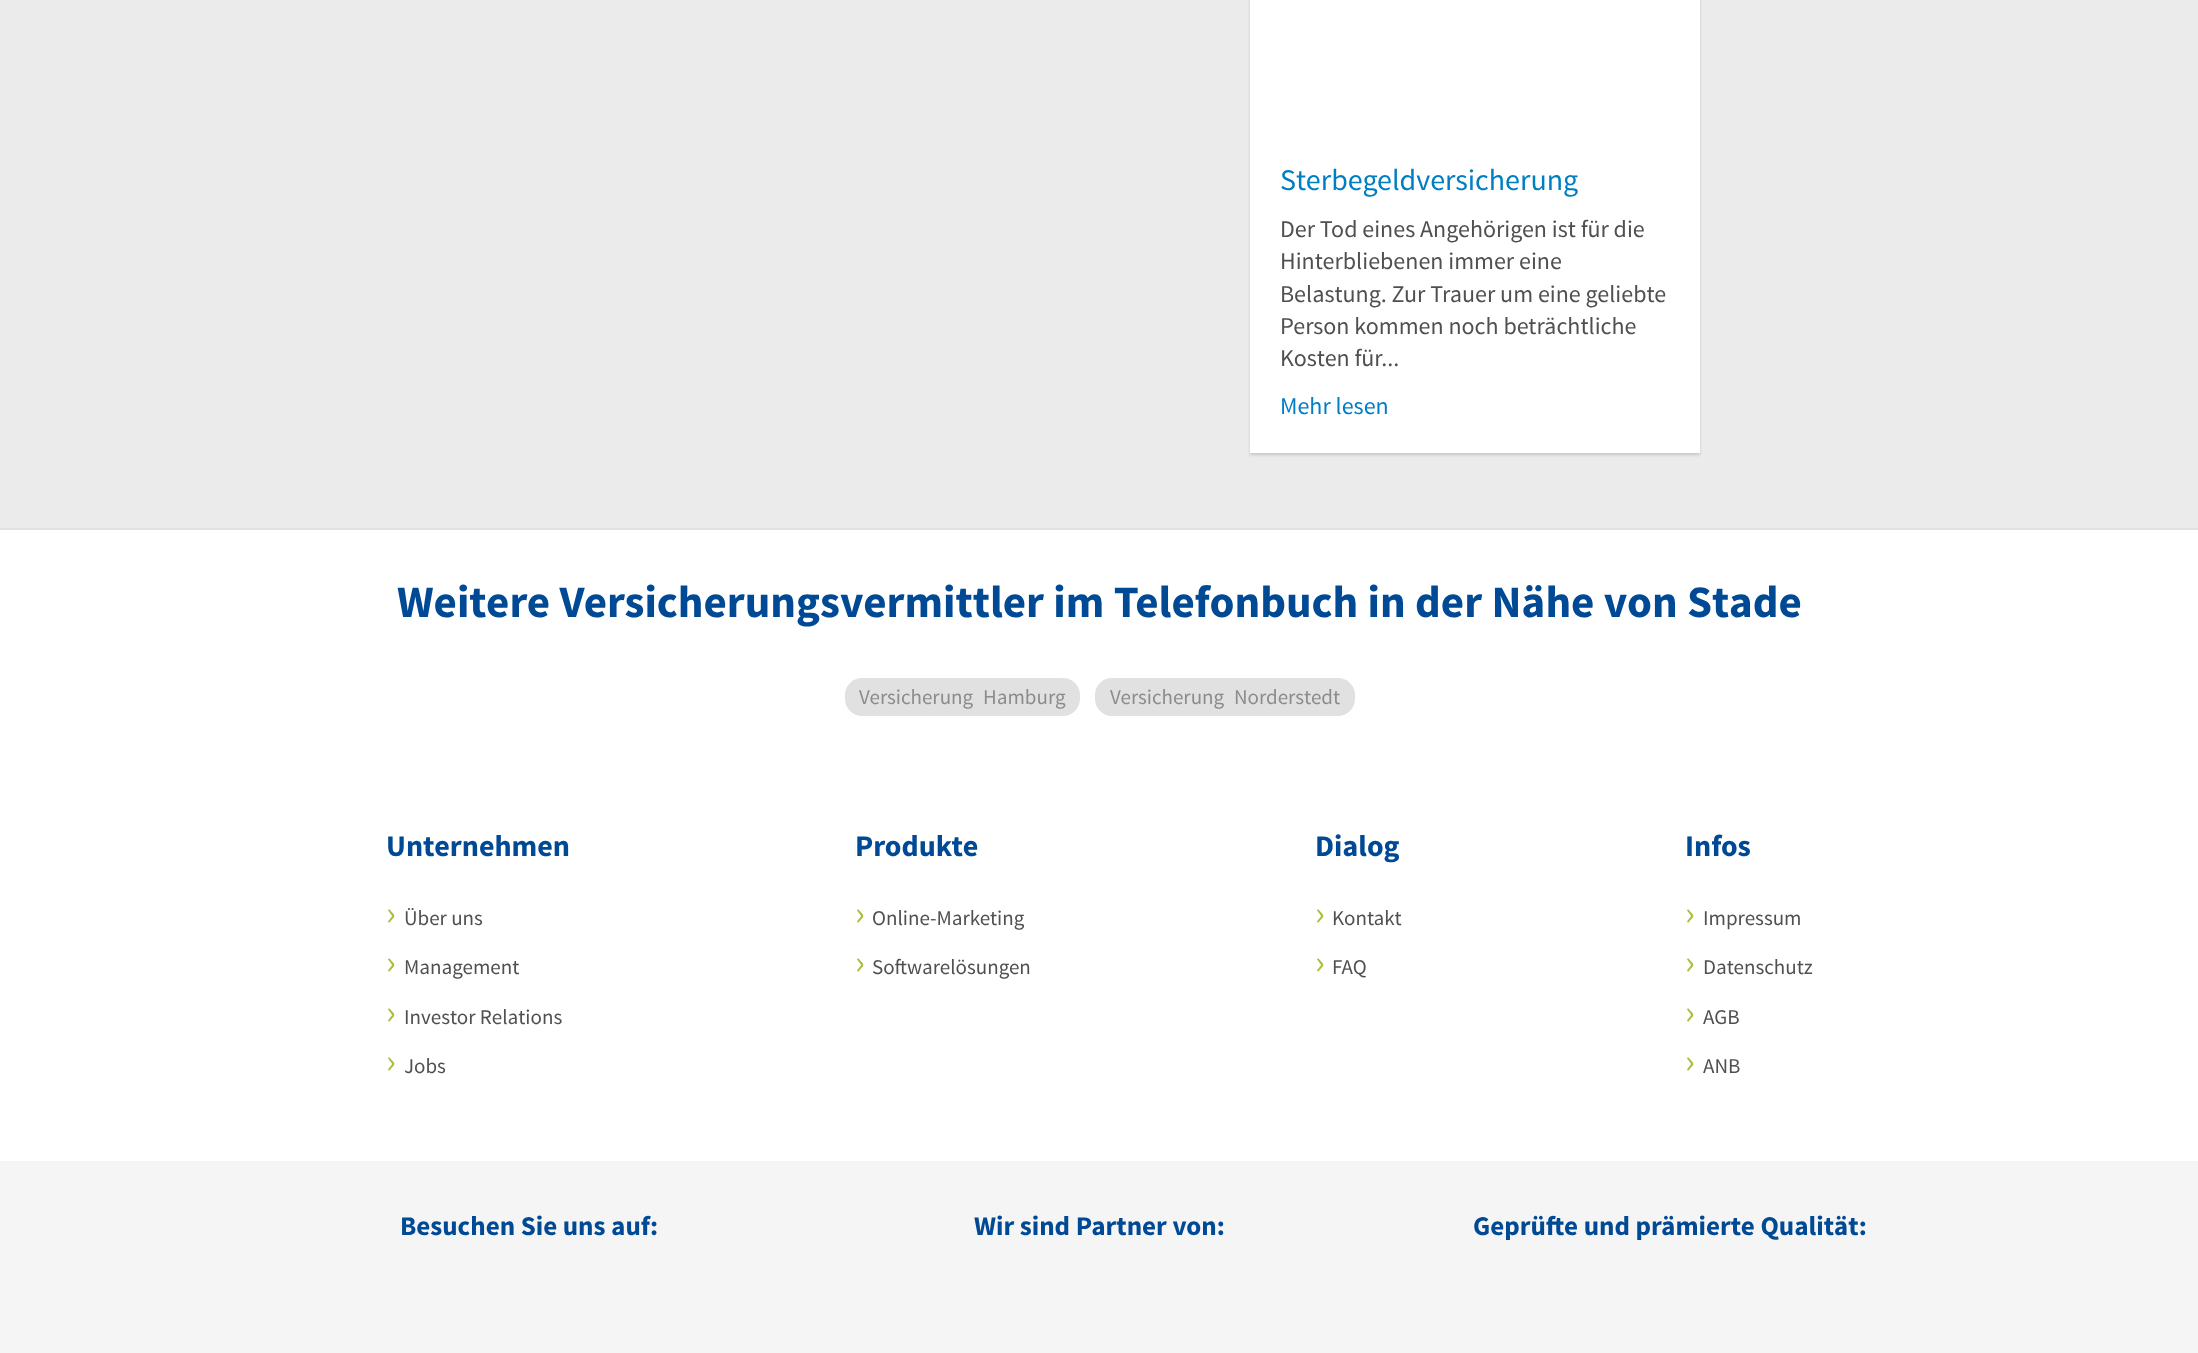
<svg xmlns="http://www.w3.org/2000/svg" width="2198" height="1353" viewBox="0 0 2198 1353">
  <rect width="100%" height="100%" fill="rgb(235,235,235)"/>
  <rect x="1250" y="-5" width="450" height="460" fill="rgba(0,0,0,0.15)" filter="blur(1.5px)"/>
  <rect x="1250" y="0" width="450" height="453" fill="rgb(255,255,255)"/>
  <text x="1280" y="190" font-family="Source Sans Pro" font-size="30" fill="rgb(0,126,196)">Sterbegeldversicherung</text>
  <g font-family="Source Sans Pro" font-size="24" fill="rgb(80,80,80)">
    <text>
      <tspan x="1280" y="237">Der Tod eines Angehörigen ist für die</tspan>
      <tspan x="1280" y="269">Hinterbliebenen immer eine</tspan>
      <tspan x="1280" y="302">Belastung. Zur Trauer um eine geliebte</tspan>
      <tspan x="1280" y="334">Person kommen noch beträchtliche</tspan>
      <tspan x="1280" y="366">Kosten für...</tspan>
    </text>
  </g>
  <text x="1280" y="414" font-family="Source Sans Pro" font-size="24" fill="rgb(0,126,196)">Mehr lesen</text>
  <rect x="0" y="528" width="2198" height="2" fill="rgb(225,225,225)"/>
  <rect x="0" y="530" width="2198" height="631" fill="rgb(255,255,255)"/>
  <text x="397" y="617" font-family="Source Sans Pro" font-size="45" font-weight="bold" fill="rgb(0,73,148)">Weitere Versicherungsvermittler im Telefonbuch in der Nähe von Stade</text>
  <rect x="845" y="678" width="235" height="38" rx="17" fill="rgb(225,225,225)"/>
  <g font-family="Source Sans Pro" font-size="21" fill="rgb(140,140,140)">
    <text x="859" y="704">Versicherung</text>
    <text x="983" y="704">Hamburg</text>
  </g>
  <rect x="1095" y="678" width="260" height="38" rx="17" fill="rgb(225,225,225)"/>
  <g font-family="Source Sans Pro" font-size="21" fill="rgb(140,140,140)">
    <text x="1110" y="704">Versicherung</text>
    <text x="1234" y="704">Norderstedt</text>
  </g>
  <text x="386" y="856" font-family="Source Sans Pro" font-size="30" font-weight="bold" fill="rgb(0,73,148)">Unternehmen</text>
  <text x="386" y="925" font-family="Source Sans Pro" font-size="36" fill="rgb(167,192,62)">›</text>
  <text x="404" y="925" font-family="Source Sans Pro" font-size="21" fill="rgb(80,80,80)">Über uns</text>
  <text x="386" y="974" font-family="Source Sans Pro" font-size="36" fill="rgb(167,192,62)">›</text>
  <text x="404" y="974" font-family="Source Sans Pro" font-size="21" fill="rgb(80,80,80)">Management</text>
  <text x="386" y="1024" font-family="Source Sans Pro" font-size="36" fill="rgb(167,192,62)">›</text>
  <text x="404" y="1024" font-family="Source Sans Pro" font-size="21" fill="rgb(80,80,80)">Investor Relations</text>
  <text x="386" y="1073" font-family="Source Sans Pro" font-size="36" fill="rgb(167,192,62)">›</text>
  <text x="404" y="1073" font-family="Source Sans Pro" font-size="21" fill="rgb(80,80,80)">Jobs</text>
  <text x="855" y="856" font-family="Source Sans Pro" font-size="30" font-weight="bold" fill="rgb(0,73,148)">Produkte</text>
  <text x="855" y="925" font-family="Source Sans Pro" font-size="36" fill="rgb(167,192,62)">›</text>
  <text x="872" y="925" font-family="Source Sans Pro" font-size="21" fill="rgb(80,80,80)">Online-Marketing</text>
  <text x="855" y="974" font-family="Source Sans Pro" font-size="36" fill="rgb(167,192,62)">›</text>
  <text x="872" y="974" font-family="Source Sans Pro" font-size="21" fill="rgb(80,80,80)">Softwarelösungen</text>
  <text x="1315" y="856" font-family="Source Sans Pro" font-size="30" font-weight="bold" fill="rgb(0,73,148)">Dialog</text>
  <text x="1315" y="925" font-family="Source Sans Pro" font-size="36" fill="rgb(167,192,62)">›</text>
  <text x="1332" y="925" font-family="Source Sans Pro" font-size="21" fill="rgb(80,80,80)">Kontakt</text>
  <text x="1315" y="974" font-family="Source Sans Pro" font-size="36" fill="rgb(167,192,62)">›</text>
  <text x="1332" y="974" font-family="Source Sans Pro" font-size="21" fill="rgb(80,80,80)">FAQ</text>
  <text x="1685" y="856" font-family="Source Sans Pro" font-size="30" font-weight="bold" fill="rgb(0,73,148)">Infos</text>
  <text x="1685" y="925" font-family="Source Sans Pro" font-size="36" fill="rgb(167,192,62)">›</text>
  <text x="1703" y="925" font-family="Source Sans Pro" font-size="21" fill="rgb(80,80,80)">Impressum</text>
  <text x="1685" y="974" font-family="Source Sans Pro" font-size="36" fill="rgb(167,192,62)">›</text>
  <text x="1703" y="974" font-family="Source Sans Pro" font-size="21" fill="rgb(80,80,80)">Datenschutz</text>
  <text x="1685" y="1024" font-family="Source Sans Pro" font-size="36" fill="rgb(167,192,62)">›</text>
  <text x="1703" y="1024" font-family="Source Sans Pro" font-size="21" fill="rgb(80,80,80)">AGB</text>
  <text x="1685" y="1073" font-family="Source Sans Pro" font-size="36" fill="rgb(167,192,62)">›</text>
  <text x="1703" y="1073" font-family="Source Sans Pro" font-size="21" fill="rgb(80,80,80)">ANB</text>
  <rect x="0" y="1161" width="2198" height="192" fill="rgb(245,245,245)"/>
  <g font-family="Source Sans Pro" font-size="27" font-weight="bold" fill="rgb(0,73,148)">
    <text x="400" y="1235">Besuchen Sie uns auf:</text>
    <text x="974" y="1235">Wir sind Partner von:</text>
    <text x="1473" y="1235">Geprüfte und prämierte Qualität:</text>
  </g>
</svg>
